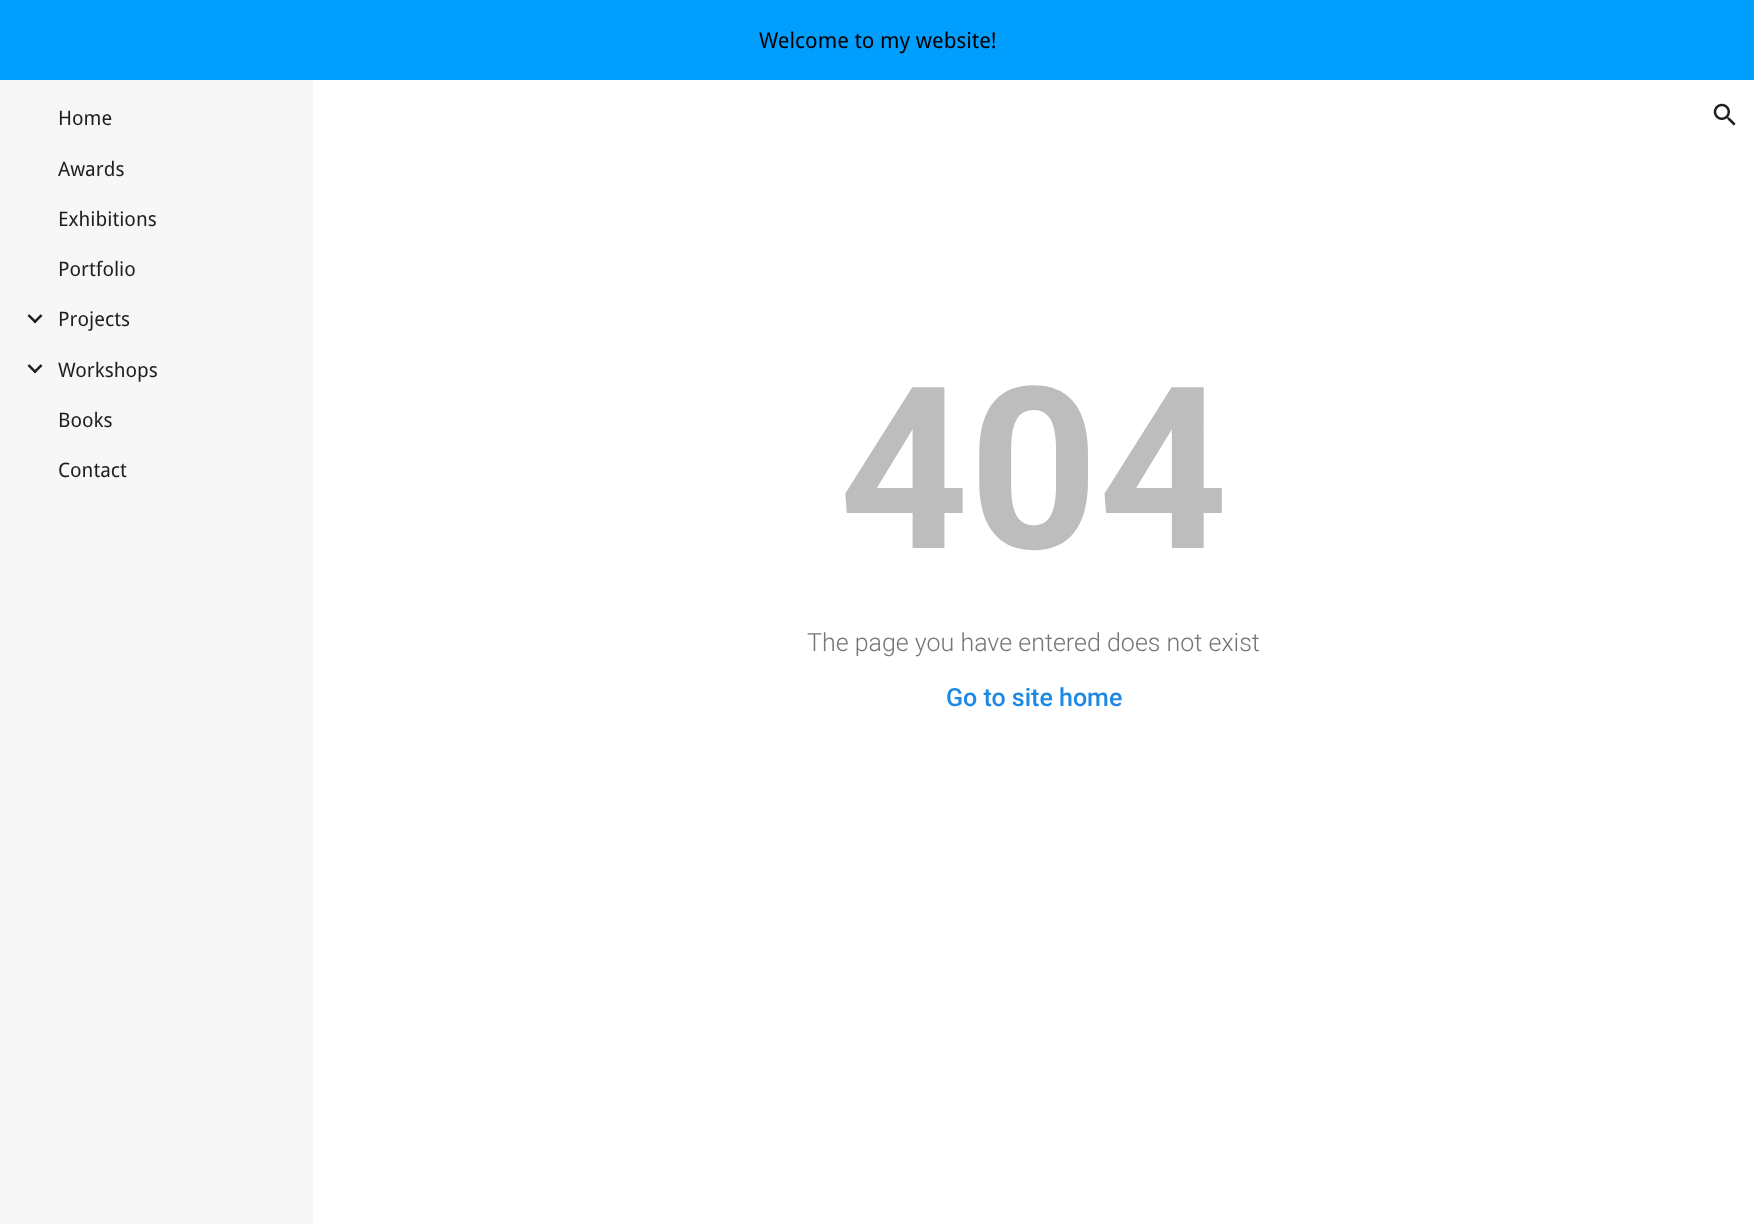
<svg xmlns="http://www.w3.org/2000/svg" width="1754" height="1224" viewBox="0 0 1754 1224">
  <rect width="100%" height="100%" fill="rgb(255,255,255)"/>
  <rect x="0" y="0" width="1754" height="80" fill="rgb(0,159,255)"/>
  <text x="759" y="48" font-family="Droid Sans" font-size="21.75" fill="rgb(0,0,0)">Welcome to my website!</text>
  <rect x="0" y="80" width="313" height="1144" fill="rgb(247,247,247)"/>
  <g font-family="Droid Sans" font-size="20" fill="rgb(31,31,31)">
    <text x="58" y="125">Home</text>
    <text x="58" y="176">Awards</text>
    <text x="58" y="226">Exhibitions</text>
    <text x="58" y="276">Portfolio</text>
  </g>
  <image x="27" y="314" width="16" height="10" href="pic1.png"/>
  <text x="58" y="326" font-family="Droid Sans" font-size="20" fill="rgb(31,31,31)">Projects</text>
  <image x="27" y="364" width="16" height="10" href="pic1.png"/>
  <g font-family="Droid Sans" font-size="20" fill="rgb(31,31,31)">
    <text x="58" y="377">Workshops</text>
    <text x="58" y="427">Books</text>
    <text x="58" y="477">Contact</text>
  </g>
  <image x="1713" y="103" width="23" height="23" href="pic2.png"/>
  <text x="839" y="548" font-family="Roboto" font-size="226" font-weight="bold" fill="rgb(189,189,189)">404</text>
  <text x="807" y="651" font-family="Roboto" font-size="25" font-weight="300" fill="rgb(117,117,117)">The page you have entered does not exist</text>
  <text x="946" y="706" font-family="Roboto" font-size="25" font-weight="500" fill="rgb(30,136,229)">Go to site home</text>
</svg>
